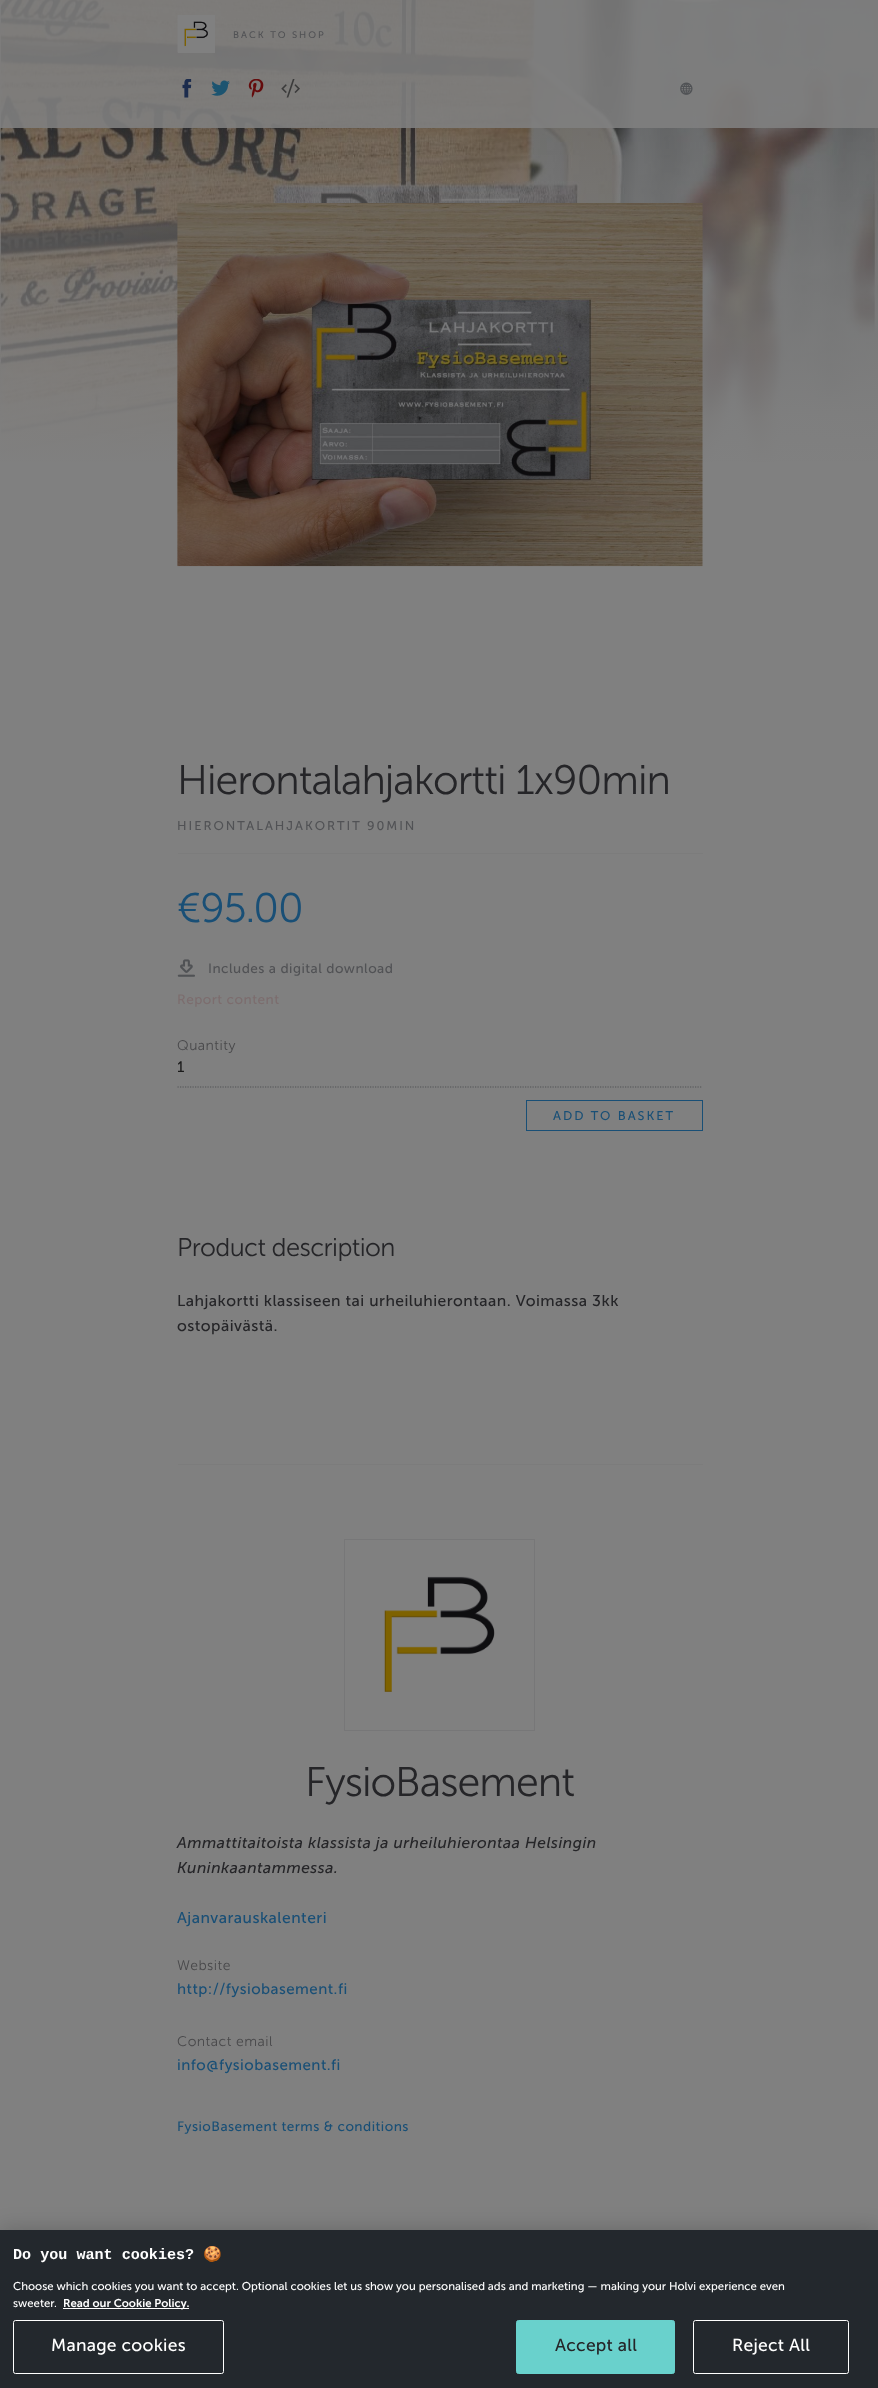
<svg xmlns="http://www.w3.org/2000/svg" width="878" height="2388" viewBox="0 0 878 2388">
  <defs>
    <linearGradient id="g1" gradientUnits="userSpaceOnUse" x1="439" y1="0" x2="439" y2="468"><stop offset="0" stop-color="rgb(128,128,128)" stop-opacity="0"/><stop offset="0.4" stop-color="rgb(128,128,128)" stop-opacity="0.5"/><stop offset="0.58" stop-color="rgb(128,128,128)" stop-opacity="0.7"/><stop offset="0.8" stop-color="rgb(128,128,128)" stop-opacity="0.88"/><stop offset="0.89" stop-color="rgb(128,128,128)" stop-opacity="0.95"/><stop offset="1" stop-color="rgb(128,128,128)"/></linearGradient>
    <clipPath id="clip1"><rect x="178" y="1059" width="506" height="17"/></clipPath>
    <clipPath id="clip2"><rect x="13" y="2246" width="810" height="67"/></clipPath>
  </defs>
  <rect width="100%" height="100%" fill="rgb(128,128,128)"/>
  <image x="0" y="0" width="878" height="462" href="pic1.png"/>
  <rect x="0" y="8" width="878" height="454" fill="url(#g1)"/>
  <rect x="0" y="0" width="878" height="128" fill="rgba(128,128,128,0.9)"/>
  <rect x="178" y="15" width="37" height="38" fill="rgb(128,128,128)"/>
  <image x="177" y="15" width="31" height="38" href="pic2.png"/>
  <text x="233" y="38" font-family="Museo Sans" font-size="9.5" letter-spacing="2" fill="rgb(81,82,85)">BACK TO SHOP</text>
  <image x="182" y="79" width="10" height="19" href="pic3.png"/>
  <image x="211" y="80" width="19" height="16" href="pic4.png"/>
  <image x="248" y="79" width="16" height="19" href="pic5.png"/>
  <image x="281" y="79" width="19" height="19" href="pic6.png"/>
  <image x="680" y="82" width="13" height="13" href="pic7.png"/>
  <image x="177" y="203" width="526" height="364" href="pic8.png"/>
  <text x="177" y="794" font-family="Museo Sans" font-size="41.2" font-weight="300" letter-spacing="-1" fill="rgb(37,37,40)">Hierontalahjakortti 1x90min</text>
  <rect x="178" y="853" width="525" height="1" fill="rgb(124,124,124)"/>
  <text x="177" y="830" font-family="Museo Sans" font-size="12.6" letter-spacing="2" fill="rgb(81,82,85)">HIERONTALAHJAKORTIT 90MIN</text>
  <text x="177" y="922" font-family="Museo Sans" font-size="41.2" font-weight="300" letter-spacing="-1" fill="rgb(25,79,118)">€95.00</text>
  <image x="177" y="959" width="18" height="18" href="pic9.png"/>
  <text x="208" y="973" font-family="Museo Sans" font-size="13.6" letter-spacing="0.47" fill="rgb(81,82,85)">Includes a digital download</text>
  <text x="177" y="1004" font-family="Museo Sans" font-size="13.6" letter-spacing="0.47" fill="rgb(124,109,110)">Report content</text>
  <text x="177" y="1050" font-family="Museo Sans" font-size="14" font-weight="300" letter-spacing="0.47" fill="rgb(73,73,75)">Quantity</text>
  <path d="M177.5 1087H702.5" fill="none" stroke="rgb(81,82,85)" stroke-width="1.2" stroke-dasharray="1.25 1.25"/>
  <g clip-path="url(#clip1)">
    <text x="177" y="1072" font-family="Museo Sans" font-size="15.1" letter-spacing="0.47" fill="rgb(26,26,26)">1</text>
  </g>
  <rect x="526.5" y="1100.5" width="176" height="30" fill="none" stroke="rgb(25,79,118)"/>
  <text x="553" y="1120" font-family="Museo Sans" font-size="12.6" letter-spacing="2" fill="rgb(25,79,118)">ADD TO BASKET</text>
  <text x="177" y="1256" font-family="Museo Sans" font-size="25.5" font-weight="300" letter-spacing="-0.6" fill="rgb(37,37,40)">Product description</text>
  <g font-family="Museo Sans" font-size="15.7" letter-spacing="0.47" fill="rgb(37,37,40)">
    <text>
      <tspan x="177" y="1306">Lahjakortti klassiseen tai urheiluhierontaan. Voimassa 3kk</tspan>
      <tspan x="177" y="1331">ostopäivästä.</tspan>
    </text>
  </g>
  <rect x="178" y="1464" width="525" height="1" fill="rgb(124,124,124)"/>
  <rect x="344.5" y="1539.5" width="190" height="191" fill="none" stroke="rgb(119,119,120)"/>
  <image x="384" y="1576" width="111" height="116" href="pic10.png"/>
  <text x="305" y="1796" font-family="Museo Sans" font-size="41.2" font-weight="300" letter-spacing="-1" fill="rgb(37,37,40)">FysioBasement</text>
  <g font-family="Museo Sans" font-size="15.7" font-style="italic" letter-spacing="0.47" fill="rgb(37,37,40)">
    <text>
      <tspan x="177" y="1848">Ammattitaitoista klassista ja urheiluhierontaa Helsingin</tspan>
      <tspan x="177" y="1873">Kuninkaantammessa.</tspan>
    </text>
  </g>
  <text x="177" y="1923" font-family="Museo Sans" font-size="15.7" letter-spacing="0.47" fill="rgb(25,79,118)">Ajanvarauskalenteri</text>
  <text x="177" y="1970" font-family="Museo Sans" font-size="14" font-weight="300" letter-spacing="0.47" fill="rgb(73,73,75)">Website</text>
  <text x="177" y="1994" font-family="Museo Sans" font-size="15.1" letter-spacing="0.47" fill="rgb(25,79,118)">http://fysiobasement.fi</text>
  <text x="177" y="2046" font-family="Museo Sans" font-size="14" font-weight="300" letter-spacing="0.47" fill="rgb(73,73,75)">Contact email</text>
  <text x="177" y="2070" font-family="Museo Sans" font-size="15.1" letter-spacing="0.47" fill="rgb(25,79,118)">info@fysiobasement.fi</text>
  <text x="177" y="2131" font-family="Museo Sans" font-size="13.6" letter-spacing="0.47" fill="rgb(25,79,118)">FysioBasement terms &amp; conditions</text>
  <rect x="0" y="2230" width="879" height="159" fill="rgba(0,0,0,0.2)" filter="blur(11px)"/>
  <rect x="0" y="2230" width="878" height="158" fill="rgb(35,40,45)"/>
  <text x="13" y="2259" font-family="Liberation Mono" font-size="15.1" font-weight="bold" fill="rgb(255,255,255)">Do you want cookies?</text>
  <g clip-path="url(#clip2)">
    <text x="203" y="2259" font-family="Noto Color Emoji" font-size="15.1" font-weight="bold" fill="rgb(255,255,255)">🍪</text>
  </g>
  <g font-family="Museo Sans" font-size="11.35" fill="rgb(255,255,255)">
    <text>
      <tspan x="13" y="2290">Choose which cookies you want to accept. Optional cookies let us show you personalised ads and marketing — making your Holvi experience even</tspan>
      <tspan x="13" y="2307">sweeter.</tspan>
    </text>
  </g>
  <rect x="63" y="2308" width="126" height="1" fill="rgb(255,255,255)"/>
  <text x="63" y="2307" font-family="Museo Sans" font-size="11.35" font-weight="600" fill="rgb(255,255,255)">Read our Cookie Policy.</text>
  <rect x="13.5" y="2320.5" width="210" height="53" rx="2" fill="none" stroke="rgb(255,255,255)"/>
  <text x="51" y="2351" font-family="Museo Sans" font-size="17.5" letter-spacing="0.25" fill="rgb(255,255,255)">Manage cookies</text>
  <rect x="516.5" y="2320.5" width="158" height="53" rx="2" fill="rgb(105,209,204)" stroke="rgb(105,209,204)"/>
  <text x="555" y="2351" font-family="Museo Sans" font-size="17.5" letter-spacing="0.25" fill="rgb(37,37,40)">Accept all</text>
  <rect x="693.5" y="2320.5" width="155" height="53" rx="2" fill="none" stroke="rgb(255,255,255)"/>
  <text x="732" y="2351" font-family="Museo Sans" font-size="17.5" letter-spacing="0.25" fill="rgb(255,255,255)">Reject All</text>
</svg>
